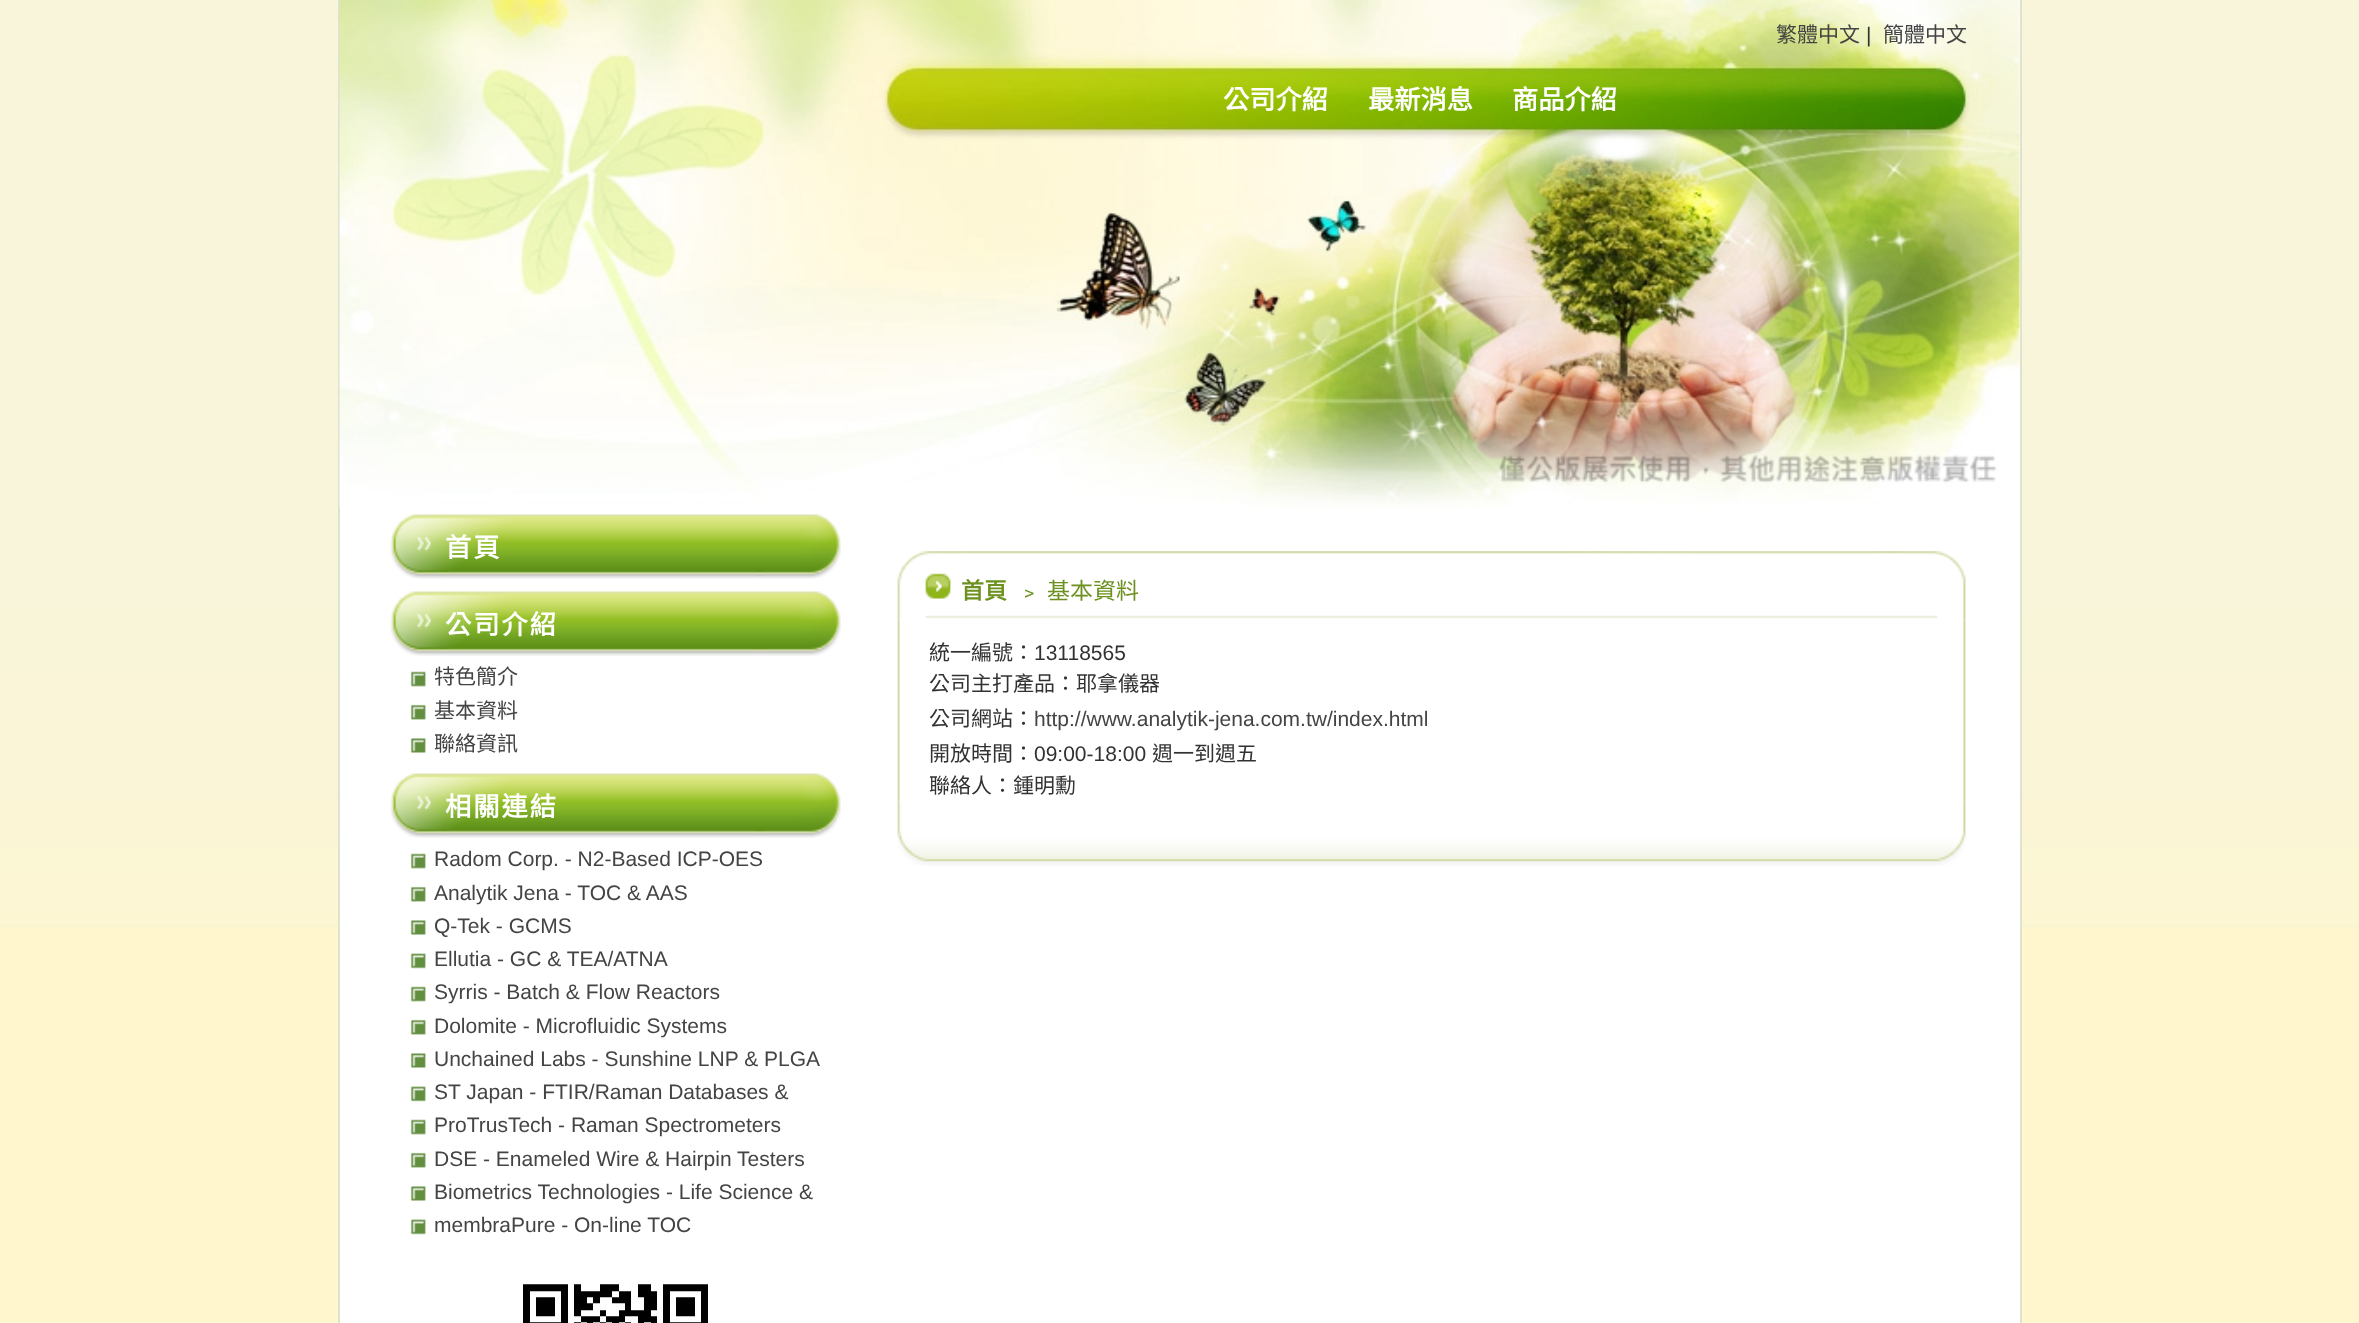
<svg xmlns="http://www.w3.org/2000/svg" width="2359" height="1323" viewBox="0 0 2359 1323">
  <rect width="100%" height="100%" fill="rgb(255,246,206)"/>
  <image x="0" y="0" width="2359" height="927" href="pic1.png"/>
  <rect x="340" y="0" width="1680" height="1323" fill="rgb(255,255,255)"/>
  <rect x="2020" y="0" width="2" height="1323" fill="rgb(220,227,207)"/>
  <rect x="338" y="0" width="2" height="1323" fill="rgb(220,227,207)"/>
  <image x="339" y="0" width="1681" height="508" href="pic2.png"/>
  <text x="1776" y="42" font-family="Noto Sans CJK TC" font-size="21" fill="rgb(68,68,68)">繁體中文</text>
  <text x="1866" y="42" font-family="Liberation Sans" font-size="21" fill="rgb(50,50,50)">|</text>
  <text x="1883" y="42" font-family="Noto Sans CJK TC" font-size="21" fill="rgb(68,68,68)">簡體中文</text>
  <g font-family="Noto Sans CJK TC" font-size="26.25" font-weight="bold" fill="rgb(255,255,255)">
    <text x="1223" y="109">公司介紹</text>
    <text x="1368" y="109">最新消息</text>
    <text x="1512" y="109">商品介紹</text>
  </g>
  <image x="390" y="514" width="451" height="65" href="pic3.png"/>
  <text x="445" y="557" font-family="Noto Sans CJK TC" font-size="26.25" font-weight="bold" letter-spacing="2" fill="rgb(255,255,255)">首頁</text>
  <image x="390" y="591" width="451" height="65" href="pic3.png"/>
  <text x="445" y="634" font-family="Noto Sans CJK TC" font-size="26.25" font-weight="bold" letter-spacing="2" fill="rgb(255,255,255)">公司介紹</text>
  <image x="410" y="671" width="16" height="16" href="pic4.png"/>
  <text x="434" y="684" font-family="Noto Sans CJK TC" font-size="21" fill="rgb(68,68,68)">特色簡介</text>
  <image x="410" y="704" width="16" height="16" href="pic5.png"/>
  <text x="434" y="718" font-family="Noto Sans CJK TC" font-size="21" fill="rgb(68,68,68)">基本資料</text>
  <image x="410" y="738" width="16" height="15" href="pic6.png"/>
  <text x="434" y="751" font-family="Noto Sans CJK TC" font-size="21" fill="rgb(68,68,68)">聯絡資訊</text>
  <image x="390" y="773" width="451" height="65" href="pic3.png"/>
  <text x="445" y="816" font-family="Noto Sans CJK TC" font-size="26.25" font-weight="bold" letter-spacing="2" fill="rgb(255,255,255)">相關連結</text>
  <image x="410" y="853" width="16" height="16" href="pic4.png"/>
  <text x="434" y="866" font-family="Liberation Sans" font-size="21" fill="rgb(68,68,68)">Radom Corp. - N2-Based ICP-OES</text>
  <image x="410" y="886" width="16" height="16" href="pic5.png"/>
  <text x="434" y="900" font-family="Liberation Sans" font-size="21" fill="rgb(68,68,68)">Analytik Jena - TOC &amp; AAS</text>
  <image x="410" y="920" width="16" height="15" href="pic6.png"/>
  <text x="434" y="933" font-family="Liberation Sans" font-size="21" fill="rgb(68,68,68)">Q-Tek - GCMS</text>
  <image x="410" y="953" width="16" height="16" href="pic7.png"/>
  <text x="434" y="966" font-family="Liberation Sans" font-size="21" fill="rgb(68,68,68)">Ellutia - GC &amp; TEA/ATNA</text>
  <image x="410" y="986" width="16" height="16" href="pic4.png"/>
  <text x="434" y="999" font-family="Liberation Sans" font-size="21" fill="rgb(68,68,68)">Syrris - Batch &amp; Flow Reactors</text>
  <image x="410" y="1019" width="16" height="16" href="pic5.png"/>
  <text x="434" y="1033" font-family="Liberation Sans" font-size="21" fill="rgb(68,68,68)">Dolomite - Microfluidic Systems</text>
  <image x="410" y="1053" width="16" height="15" href="pic6.png"/>
  <text x="434" y="1066" font-family="Liberation Sans" font-size="21" fill="rgb(68,68,68)">Unchained Labs - Sunshine LNP &amp; PLGA</text>
  <image x="410" y="1086" width="16" height="16" href="pic7.png"/>
  <text x="434" y="1099" font-family="Liberation Sans" font-size="21" fill="rgb(68,68,68)">ST Japan - FTIR/Raman Databases &amp;</text>
  <image x="410" y="1119" width="16" height="16" href="pic4.png"/>
  <text x="434" y="1132" font-family="Liberation Sans" font-size="21" fill="rgb(68,68,68)">ProTrusTech - Raman Spectrometers</text>
  <image x="410" y="1152" width="16" height="16" href="pic5.png"/>
  <text x="434" y="1166" font-family="Liberation Sans" font-size="21" fill="rgb(68,68,68)">DSE - Enameled Wire &amp; Hairpin Testers</text>
  <image x="410" y="1186" width="16" height="15" href="pic6.png"/>
  <text x="434" y="1199" font-family="Liberation Sans" font-size="21" fill="rgb(68,68,68)">Biometrics Technologies - Life Science &amp;</text>
  <image x="410" y="1219" width="16" height="16" href="pic7.png"/>
  <text x="434" y="1232" font-family="Liberation Sans" font-size="21" fill="rgb(68,68,68)">membraPure - On-line TOC</text>
  <image x="523" y="1282" width="186" height="41" href="pic8.png"/>
  <image x="897" y="551" width="1069" height="69" href="pic9.png"/>
  <text x="961" y="599" font-family="Noto Sans CJK TC" font-size="23" font-weight="bold" fill="rgb(108,145,32)">首頁</text>
  <g font-family="Noto Sans CJK TC" font-size="23" fill="rgb(108,145,32)">
    <text x="1018" y="599">﹥</text>
    <text x="1047" y="599">基本資料</text>
  </g>
  <image x="897" y="801" width="1069" height="65" href="pic11.png"/>
  <image x="897" y="619" width="1069" height="183" href="pic10.png"/>
  <text x="929" y="660" font-family="Noto Sans CJK TC" font-size="21" fill="rgb(50,50,50)">統一編號：</text>
  <text x="1034" y="660" font-family="Liberation Sans" font-size="21" fill="rgb(50,50,50)">13118565</text>
  <g font-family="Noto Sans CJK TC" font-size="21" fill="rgb(50,50,50)">
    <text>
      <tspan x="929" y="691">公司主打產品：耶拿儀器</tspan>
      <tspan x="929" y="726">公司網站：</tspan>
    </text>
  </g>
  <text x="1034" y="726" font-family="Liberation Sans" font-size="21" fill="rgb(68,68,68)">http://www.analytik-jena.com.tw/index.html</text>
  <text x="929" y="761" font-family="Noto Sans CJK TC" font-size="21" fill="rgb(50,50,50)">開放時間：</text>
  <text x="1034" y="761" font-family="Liberation Sans" font-size="21" fill="rgb(50,50,50)">09:00-18:00</text>
  <g font-family="Noto Sans CJK TC" font-size="21" fill="rgb(50,50,50)">
    <text x="1152" y="761">週一到週五</text>
    <text x="929" y="793">聯絡人：鍾明勳</text>
  </g>
</svg>
